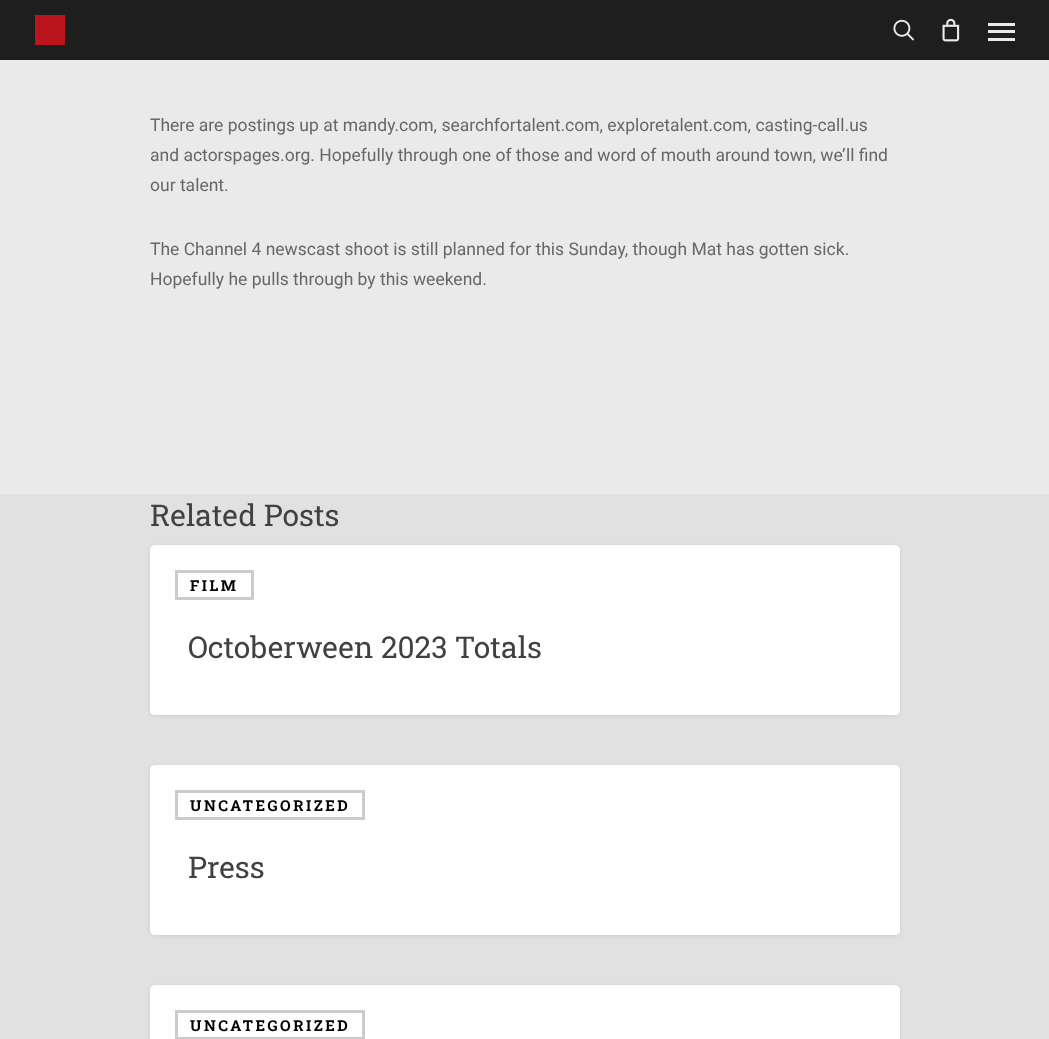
<svg xmlns="http://www.w3.org/2000/svg" width="1049" height="1039" viewBox="0 0 1049 1039">
  <rect width="100%" height="100%" fill="rgb(234,234,234)"/>
  <rect x="0" y="494" width="1049" height="545" fill="rgb(225,225,225)"/>
  <rect x="0" y="0" width="1049" height="60" fill="rgb(30,30,30)"/>
  <rect x="35" y="15" width="30" height="30" fill="rgb(186,20,28)"/>
  <image x="893" y="19" width="21" height="22" href="pic1.png"/>
  <image x="942" y="18" width="18" height="24" href="pic2.png"/>
  <rect x="988" y="23" width="27" height="3" fill="rgb(234,234,234)"/>
  <rect x="988" y="38" width="27" height="3" fill="rgb(234,234,234)"/>
  <rect x="988" y="30" width="27" height="3" fill="rgb(234,234,234)"/>
  <g font-family="Roboto" font-size="17.5" fill="rgb(103,103,103)">
    <text>
      <tspan x="150" y="131">There are postings up at mandy.com, searchfortalent.com, exploretalent.com, casting-call.us</tspan>
      <tspan x="150" y="161">and actorspages.org. Hopefully through one of those and word of mouth around town, we’ll find</tspan>
      <tspan x="150" y="191">our talent.</tspan>
    </text>
    <text>
      <tspan x="150" y="255">The Channel 4 newscast shoot is still planned for this Sunday, though Mat has gotten sick.</tspan>
      <tspan x="150" y="285">Hopefully he pulls through by this weekend.</tspan>
    </text>
  </g>
  <text x="150" y="526" font-family="Roboto Slab" font-size="30" fill="rgb(65,65,65)">Related Posts</text>
  <rect x="150" y="546" width="750" height="170" rx="5" fill="rgba(0,0,0,0.08)" filter="blur(2px)"/>
  <rect x="150" y="545" width="750" height="170" rx="5" fill="rgb(255,255,255)"/>
  <path d="M150 588H900V710C900 713 898 715 895 715H155C152 715 150 713 150 710Z" fill="rgb(255,255,255)"/>
  <rect x="176.5" y="571.5" width="76" height="27" fill="none" stroke="rgb(204,204,204)" stroke-width="3"/>
  <text x="190" y="591" font-family="Roboto Slab" font-size="15" font-weight="bold" letter-spacing="2.5" fill="rgb(0,0,0)">FILM</text>
  <text x="188" y="658" font-family="Roboto Slab" font-size="30" fill="rgb(65,65,65)">Octoberween 2023 Totals</text>
  <rect x="150" y="766" width="750" height="170" rx="5" fill="rgba(0,0,0,0.08)" filter="blur(2px)"/>
  <rect x="150" y="765" width="750" height="170" rx="5" fill="rgb(255,255,255)"/>
  <path d="M150 808H900V930C900 933 898 935 895 935H155C152 935 150 933 150 930Z" fill="rgb(255,255,255)"/>
  <rect x="176.5" y="791.5" width="187" height="27" fill="none" stroke="rgb(204,204,204)" stroke-width="3"/>
  <text x="190" y="811" font-family="Roboto Slab" font-size="15" font-weight="bold" letter-spacing="2.5" fill="rgb(0,0,0)">UNCATEGORIZED</text>
  <text x="188" y="878" font-family="Roboto Slab" font-size="30" fill="rgb(65,65,65)">Press</text>
  <rect x="150" y="986" width="750" height="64" rx="5" fill="rgba(0,0,0,0.08)" filter="blur(2px)"/>
  <rect x="150" y="985" width="750" height="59" rx="5" fill="rgb(255,255,255)"/>
  <rect x="176.5" y="1011.5" width="187" height="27" fill="none" stroke="rgb(204,204,204)" stroke-width="3"/>
  <text x="190" y="1031" font-family="Roboto Slab" font-size="15" font-weight="bold" letter-spacing="2.5" fill="rgb(0,0,0)">UNCATEGORIZED</text>
</svg>
